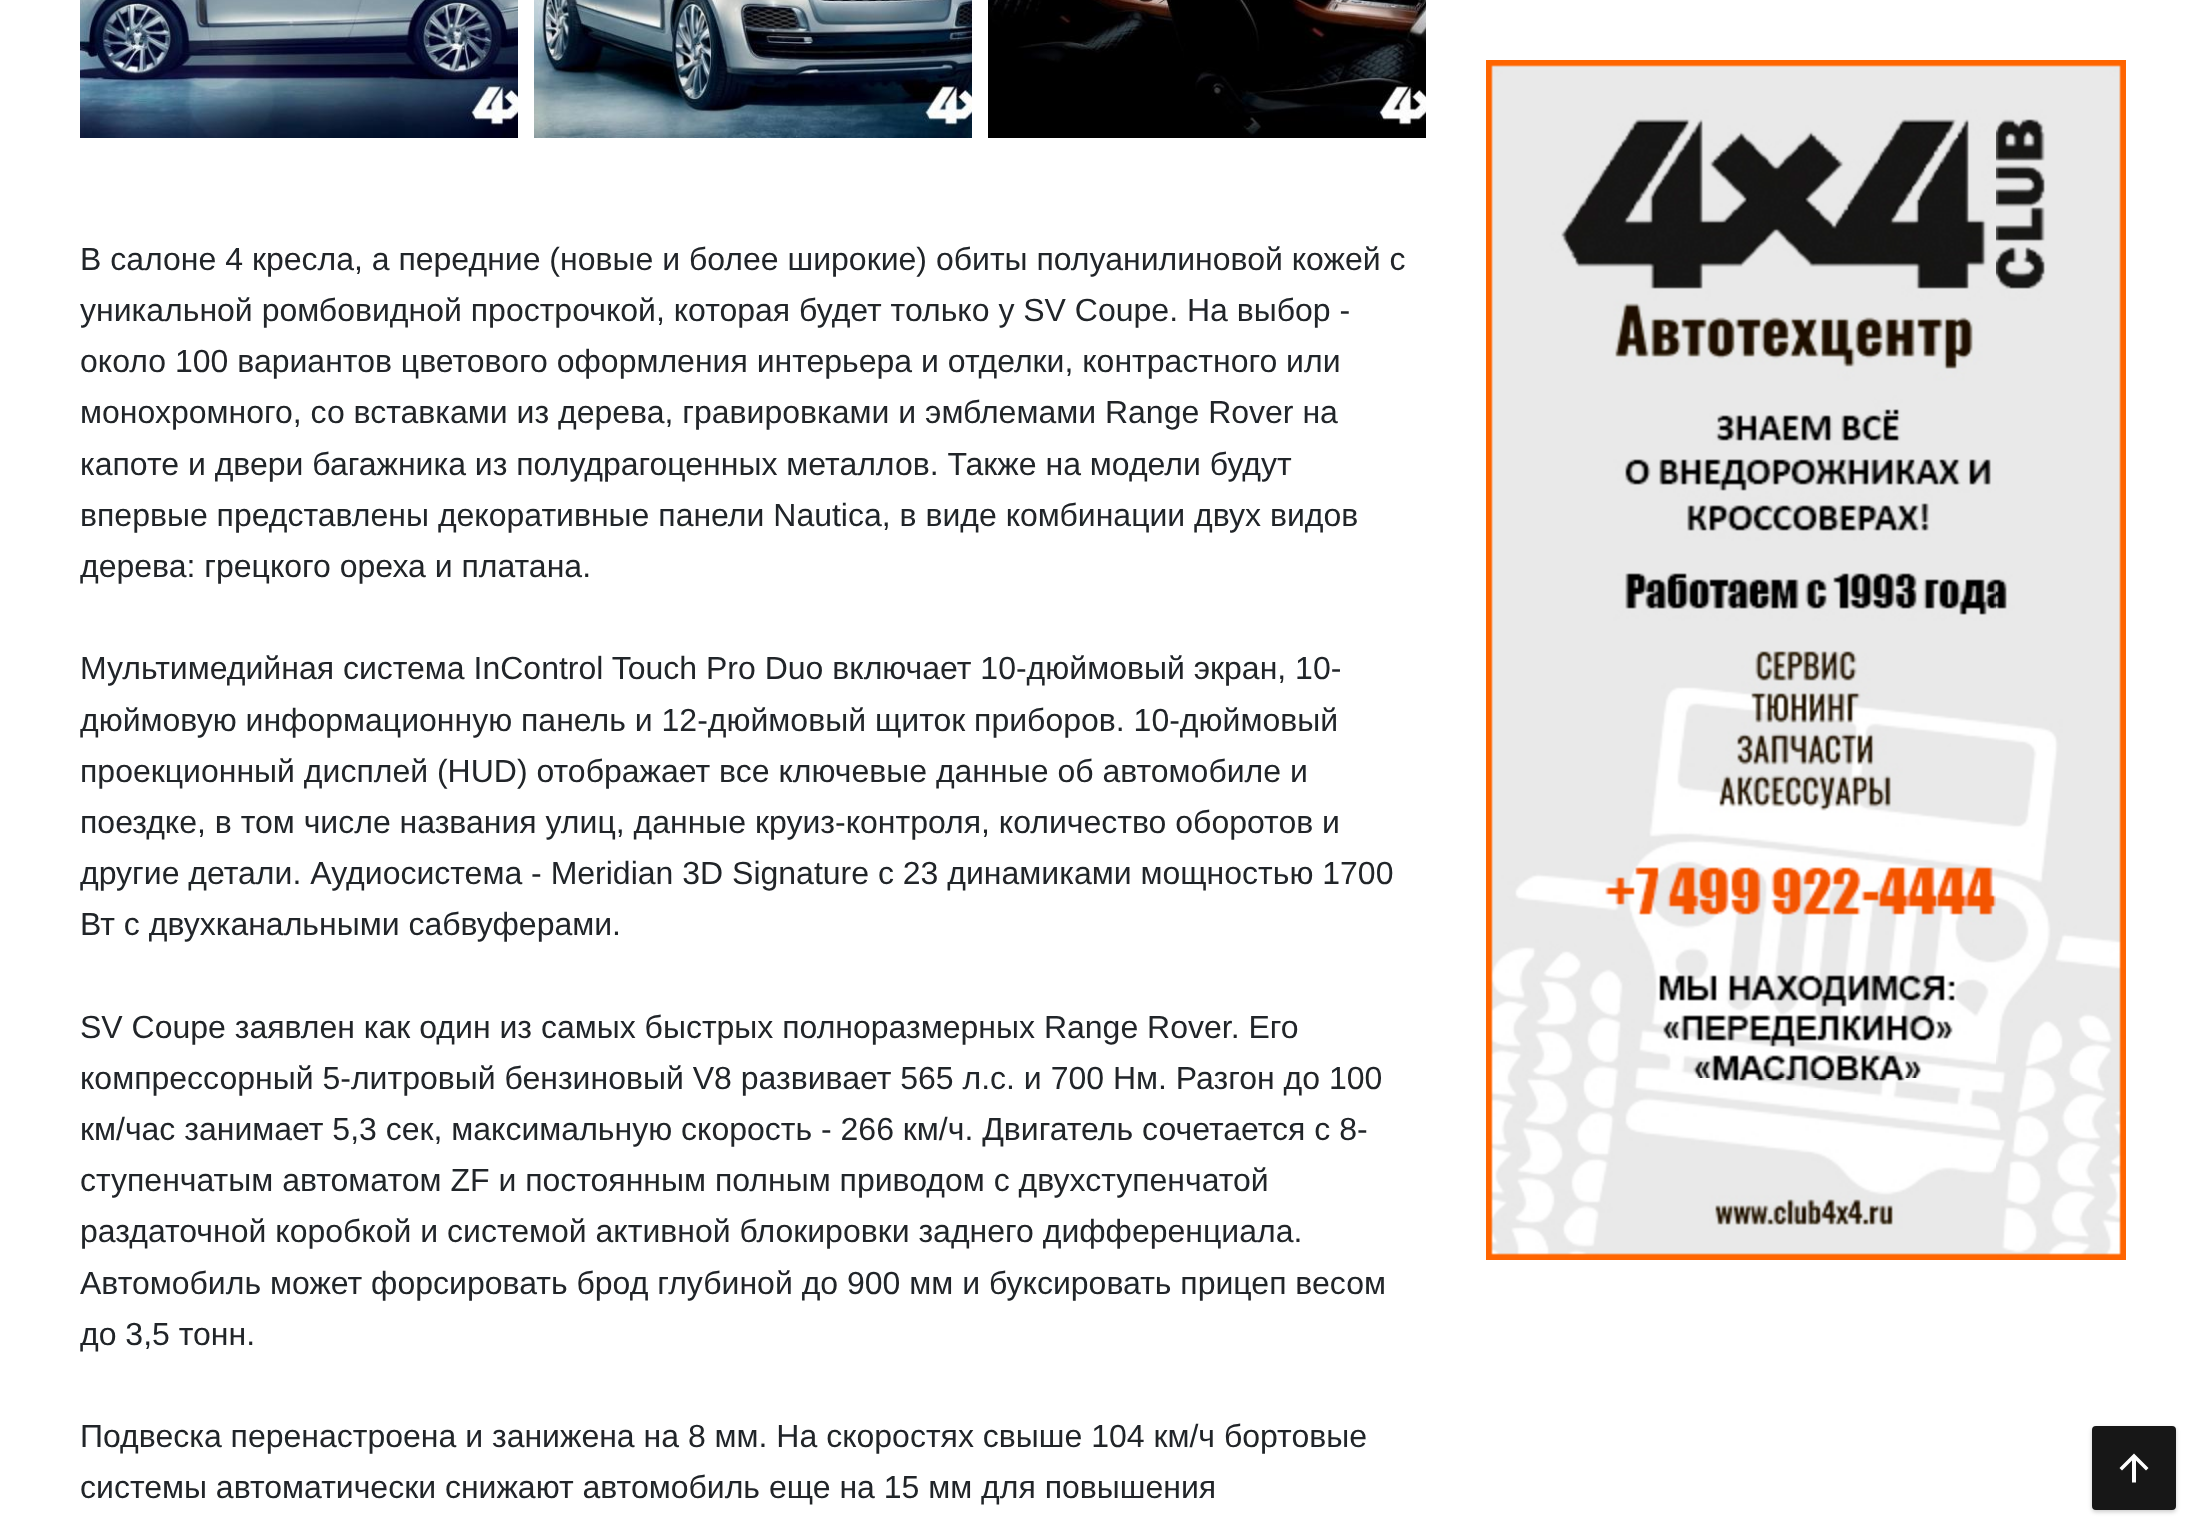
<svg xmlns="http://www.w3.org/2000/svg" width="2205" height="1539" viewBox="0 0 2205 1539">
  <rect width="100%" height="100%" fill="rgb(255,255,255)"/>
  <image x="80" y="0" width="438" height="138" href="pic1.png"/>
  <image x="534" y="0" width="438" height="138" href="pic2.png"/>
  <image x="988" y="0" width="438" height="138" href="pic3.png"/>
  <g font-family="Liberation Sans" font-size="32" fill="rgb(33,37,41)">
    <text>
      <tspan x="80" y="270">В салоне 4 кресла, а передние (новые и более широкие) обиты полуанилиновой кожей с</tspan>
      <tspan x="80" y="321">уникальной ромбовидной прострочкой, которая будет только у SV Coupe. На выбор -</tspan>
      <tspan x="80" y="372">около 100 вариантов цветового оформления интерьера и отделки, контрастного или</tspan>
      <tspan x="80" y="423">монохромного, со вставками из дерева, гравировками и эмблемами Range Rover на</tspan>
      <tspan x="80" y="475">капоте и двери багажника из полудрагоценных металлов. Также на модели будут</tspan>
      <tspan x="80" y="526">впервые представлены декоративные панели Nautica, в виде комбинации двух видов</tspan>
      <tspan x="80" y="577">дерева: грецкого ореха и платана.</tspan>
    </text>
    <text>
      <tspan x="80" y="679">Мультимедийная система InControl Touch Pro Duo включает 10-дюймовый экран, 10-</tspan>
      <tspan x="80" y="731">дюймовую информационную панель и 12-дюймовый щиток приборов. 10-дюймовый</tspan>
      <tspan x="80" y="782">проекционный дисплей (HUD) отображает все ключевые данные об автомобиле и</tspan>
      <tspan x="80" y="833">поездке, в том числе названия улиц, данные круиз-контроля, количество оборотов и</tspan>
      <tspan x="80" y="884">другие детали. Аудиосистема - Meridian 3D Signature с 23 динамиками мощностью 1700</tspan>
      <tspan x="80" y="935">Вт с двухканальными сабвуферами.</tspan>
    </text>
    <text>
      <tspan x="80" y="1038">SV Coupe заявлен как один из самых быстрых полноразмерных Range Rover. Его</tspan>
      <tspan x="80" y="1089">компрессорный 5-литровый бензиновый V8 развивает 565 л.с. и 700 Нм. Разгон до 100</tspan>
      <tspan x="80" y="1140">км/час занимает 5,3 сек, максимальную скорость - 266 км/ч. Двигатель сочетается с 8-</tspan>
      <tspan x="80" y="1191">ступенчатым автоматом ZF и постоянным полным приводом с двухступенчатой</tspan>
      <tspan x="80" y="1242">раздаточной коробкой и системой активной блокировки заднего дифференциала.</tspan>
      <tspan x="80" y="1294">Автомобиль может форсировать брод глубиной до 900 мм и буксировать прицеп весом</tspan>
      <tspan x="80" y="1345">до 3,5 тонн.</tspan>
    </text>
    <text>
      <tspan x="80" y="1447">Подвеска перенастроена и занижена на 8 мм. На скоростях свыше 104 км/ч бортовые</tspan>
      <tspan x="80" y="1498">системы автоматически снижают автомобиль еще на 15 мм для повышения</tspan>
    </text>
  </g>
  <image x="1486" y="60" width="640" height="1200" href="pic4.png"/>
  <rect x="2092" y="1428" width="84" height="84" rx="4" fill="rgba(0,0,0,0.2)" filter="blur(2px)"/>
  <rect x="2093" y="1427" width="82" height="82" rx="3" fill="rgb(23,23,23)" stroke="rgb(23,23,23)" stroke-width="2"/>
  <path d="M2119.5 1468L2134 1453.5L2148.5 1468L2146 1470.5L2136 1460.5V1482.5H2132V1460.5L2122 1470.5Z" fill="rgb(255,255,255)"/>
</svg>
